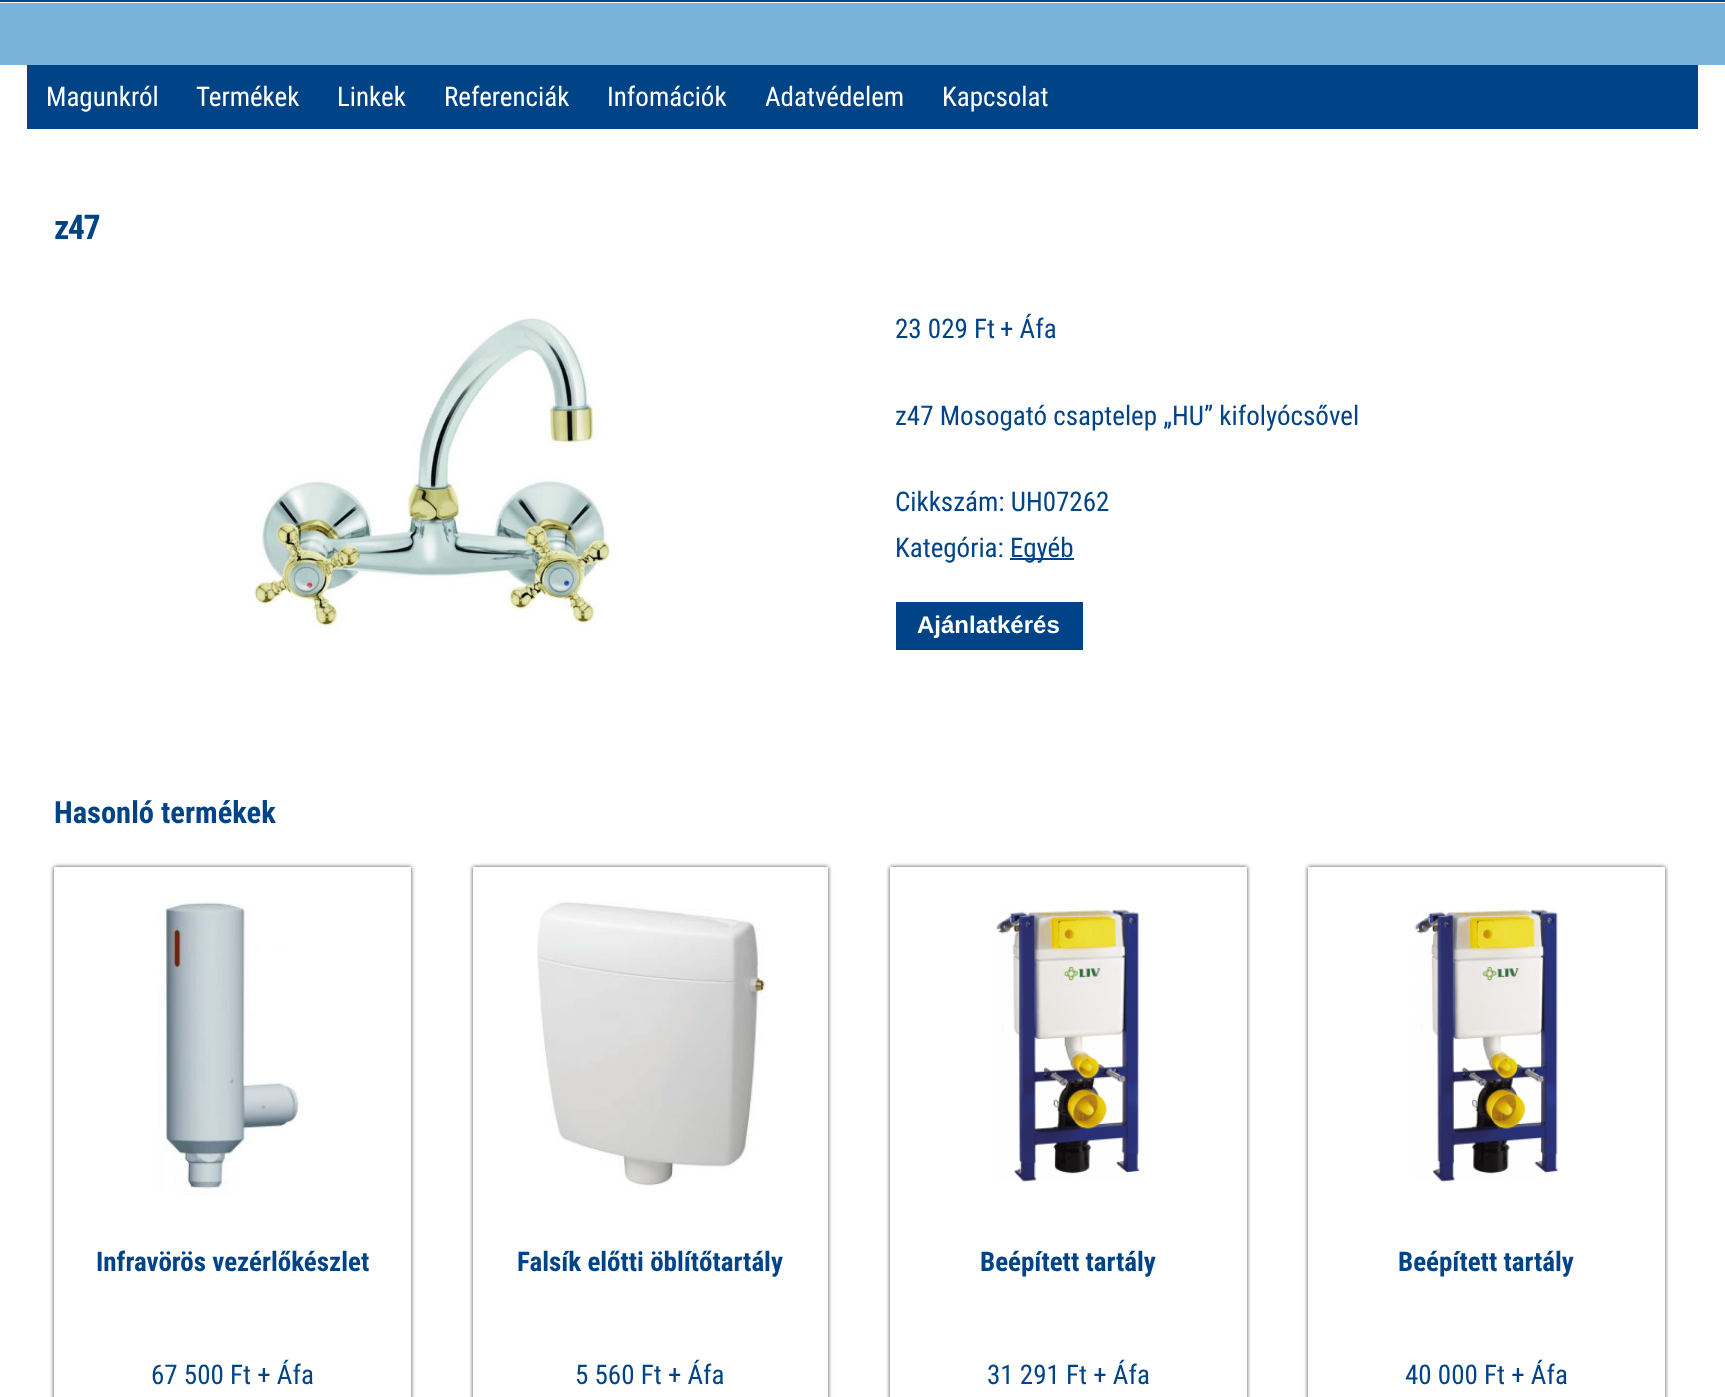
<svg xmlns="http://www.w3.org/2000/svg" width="1725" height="1397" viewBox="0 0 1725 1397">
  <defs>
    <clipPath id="clip1"><path d="M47 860H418V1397H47ZM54 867H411V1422H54Z" clip-rule="evenodd"/></clipPath>
    <clipPath id="clip2"><path d="M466 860H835V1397H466ZM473 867H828V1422H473Z" clip-rule="evenodd"/></clipPath>
    <clipPath id="clip3"><path d="M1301 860H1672V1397H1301ZM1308 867H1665V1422H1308Z" clip-rule="evenodd"/></clipPath>
  </defs>
  <rect width="100%" height="100%" fill="rgb(255,255,255)"/>
  <rect x="0" y="0" width="1725" height="2" fill="rgb(0,68,135)"/>
  <rect x="0" y="3" width="1725" height="62" fill="rgb(120,179,220)"/>
  <rect x="27" y="65" width="1671" height="64" fill="rgb(0,68,135)"/>
  <g font-family="Roboto Condensed" font-size="27" fill="rgb(255,255,255)">
    <text x="46" y="106">Magunkról</text>
    <text x="196" y="106">Termékek</text>
    <text x="337" y="106">Linkek</text>
    <text x="444" y="106">Referenciák</text>
    <text x="607" y="106">Infomációk</text>
    <text x="765" y="106">Adatvédelem</text>
    <text x="942" y="106">Kapcsolat</text>
  </g>
  <text x="54" y="239" font-family="Roboto Condensed" font-size="34" font-weight="bold" letter-spacing="-1.5" fill="rgb(0,68,135)">z47</text>
  <image x="253" y="318" width="361" height="315" href="pic1.png"/>
  <g font-family="Roboto Condensed" font-size="27" fill="rgb(0,68,135)">
    <text x="895" y="338">23 029 Ft</text>
    <text x="1000" y="338">+ Áfa</text>
    <text x="895" y="425">z47 Mosogató csaptelep „HU” kifolyócsővel</text>
    <text>
      <tspan x="895" y="511">Cikkszám: UH07262</tspan>
      <tspan x="895" y="557">Kategória:</tspan>
    </text>
  </g>
  <rect x="1010" y="558" width="64" height="2" fill="rgb(0,68,135)"/>
  <text x="1010" y="557" font-family="Roboto Condensed" font-size="27" fill="rgb(0,68,135)">Egyéb</text>
  <rect x="896" y="602" width="187" height="48" fill="rgb(0,68,135)"/>
  <text x="917" y="633" font-family="Liberation Sans" font-size="24" font-weight="bold" fill="rgb(255,255,255)">Ajánlatkérés</text>
  <text x="54" y="823" font-family="Roboto Condensed" font-size="30.5" font-weight="bold" fill="rgb(0,68,135)">Hasonló termékek</text>
  <g clip-path="url(#clip1)">
    <rect x="54" y="867" width="357" height="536" fill="rgb(68,68,68)" filter="blur(2px)"/>
  </g>
  <image x="157" y="900" width="144" height="296" href="pic2.png"/>
  <text x="96" y="1271" font-family="Roboto Condensed" font-size="27" font-weight="bold" fill="rgb(0,68,135)">Infravörös vezérlőkészlet</text>
  <text x="151" y="1384" font-family="Roboto Condensed" font-size="27" fill="rgb(0,68,135)">67 500 Ft + Áfa</text>
  <g clip-path="url(#clip2)">
    <rect x="473" y="867" width="355" height="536" fill="rgb(68,68,68)" filter="blur(2px)"/>
  </g>
  <image x="537" y="901" width="229" height="286" href="pic3.png"/>
  <text x="517" y="1271" font-family="Roboto Condensed" font-size="27" font-weight="bold" fill="rgb(0,68,135)">Falsík előtti öblítőtartály</text>
  <text x="575" y="1384" font-family="Roboto Condensed" font-size="27" fill="rgb(0,68,135)">5 560 Ft + Áfa</text>
  <rect x="890" y="867" width="357" height="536" fill="rgb(68,68,68)" filter="blur(2px)"/>
  <rect x="890" y="867" width="357" height="530" fill="rgb(255,255,255)"/>
  <image x="996" y="909" width="144" height="273" href="pic4.png"/>
  <text x="980" y="1271" font-family="Roboto Condensed" font-size="27" font-weight="bold" fill="rgb(0,68,135)">Beépített tartály</text>
  <text x="987" y="1384" font-family="Roboto Condensed" font-size="27" fill="rgb(0,68,135)">31 291 Ft + Áfa</text>
  <g clip-path="url(#clip3)">
    <rect x="1308" y="867" width="357" height="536" fill="rgb(68,68,68)" filter="blur(2px)"/>
  </g>
  <image x="1414" y="909" width="144" height="273" href="pic5.png"/>
  <text x="1398" y="1271" font-family="Roboto Condensed" font-size="27" font-weight="bold" fill="rgb(0,68,135)">Beépített tartály</text>
  <text x="1405" y="1384" font-family="Roboto Condensed" font-size="27" fill="rgb(0,68,135)">40 000 Ft + Áfa</text>
</svg>
